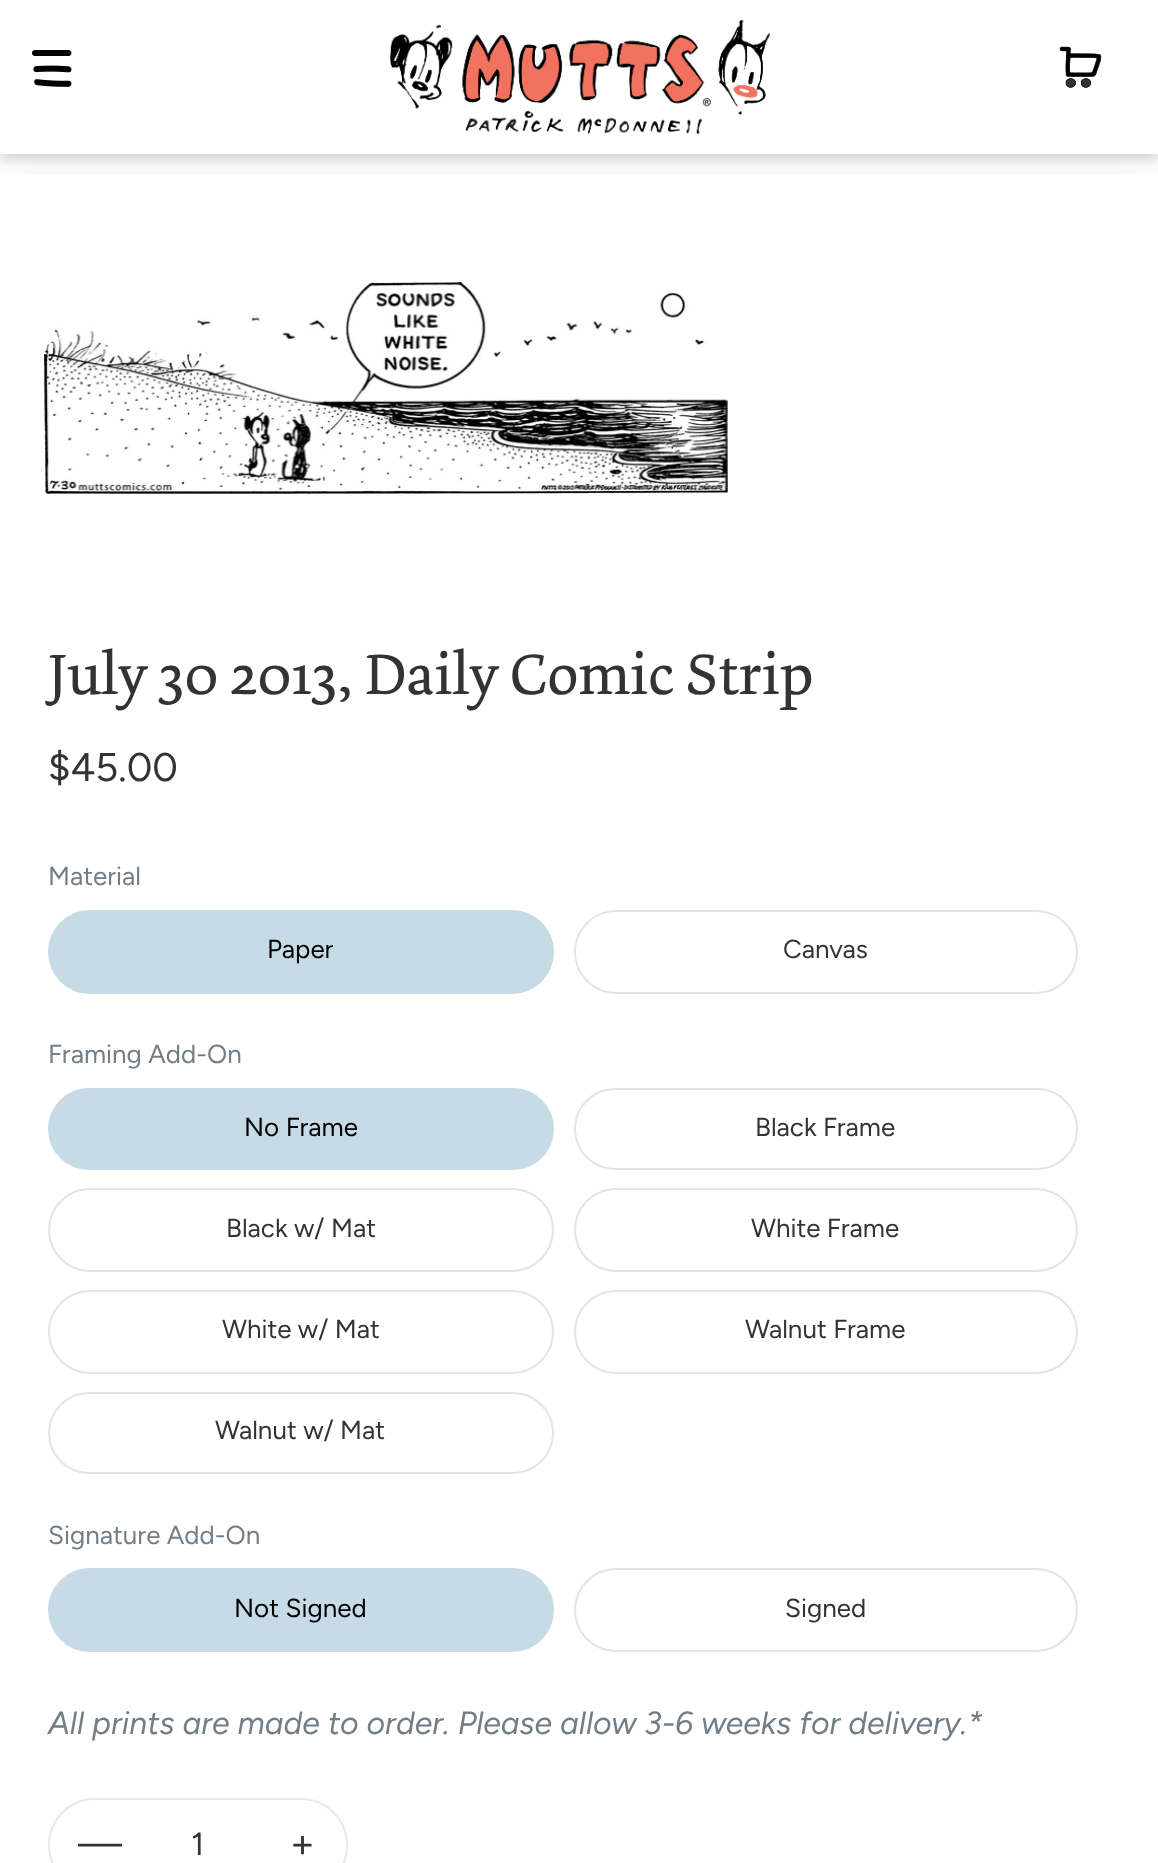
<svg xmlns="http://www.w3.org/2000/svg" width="1158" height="1863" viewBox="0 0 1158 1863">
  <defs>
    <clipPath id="clip1"><rect x="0" y="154" width="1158" height="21"/></clipPath>
    <clipPath id="clip2"><rect x="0" y="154" width="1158" height="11"/></clipPath>
  </defs>
  <rect width="100%" height="100%" fill="rgb(255,255,255)"/>
  <g clip-path="url(#clip1)">
    <rect x="0" y="12" width="1158" height="154" fill="rgba(0,0,0,0.06)" filter="blur(20px)"/>
  </g>
  <g clip-path="url(#clip2)">
    <rect x="0" y="6" width="1158" height="154" fill="rgba(0,0,0,0.12)" filter="blur(5px)"/>
  </g>
  <image x="32" y="50" width="40" height="37" href="pic1.png"/>
  <image x="389" y="20" width="381" height="114" href="pic2.png"/>
  <image x="1059" y="46" width="43" height="42" href="pic3.png"/>
  <image x="44" y="282" width="684" height="212" href="pic4.png"/>
  <text x="48" y="694" font-family="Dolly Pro" font-size="60" fill="rgb(51,51,51)">July 30 2013, Daily Comic Strip</text>
  <text x="48" y="781" font-family="Figtree" font-size="40" fill="rgb(51,51,51)">$45.00</text>
  <text x="48" y="885" font-family="Figtree" font-size="26" fill="rgb(113,125,135)">Material</text>
  <rect x="49" y="911" width="504" height="82" rx="41" fill="rgb(199,219,230)" stroke="rgb(199,219,230)" stroke-width="2"/>
  <text x="267" y="958" font-family="Figtree" font-size="26" fill="rgb(0,0,0)">Paper</text>
  <rect x="575" y="911" width="502" height="82" rx="41" fill="none" stroke="rgb(228,228,228)" stroke-width="2"/>
  <text x="783" y="958" font-family="Figtree" font-size="26" fill="rgb(51,51,51)">Canvas</text>
  <text x="48" y="1063" font-family="Figtree" font-size="26" fill="rgb(113,125,135)">Framing Add-On</text>
  <rect x="49" y="1089" width="504" height="80" rx="40" fill="rgb(199,219,230)" stroke="rgb(199,219,230)" stroke-width="2"/>
  <text x="244" y="1136" font-family="Figtree" font-size="26" fill="rgb(0,0,0)">No Frame</text>
  <rect x="575" y="1089" width="502" height="80" rx="40" fill="none" stroke="rgb(228,228,228)" stroke-width="2"/>
  <text x="755" y="1136" font-family="Figtree" font-size="26" fill="rgb(51,51,51)">Black Frame</text>
  <rect x="49" y="1189" width="504" height="82" rx="41" fill="none" stroke="rgb(228,228,228)" stroke-width="2"/>
  <text x="226" y="1237" font-family="Figtree" font-size="26" fill="rgb(51,51,51)">Black w/ Mat</text>
  <rect x="575" y="1189" width="502" height="82" rx="41" fill="none" stroke="rgb(228,228,228)" stroke-width="2"/>
  <text x="751" y="1237" font-family="Figtree" font-size="26" fill="rgb(51,51,51)">White Frame</text>
  <rect x="49" y="1291" width="504" height="82" rx="41" fill="none" stroke="rgb(228,228,228)" stroke-width="2"/>
  <text x="222" y="1338" font-family="Figtree" font-size="26" fill="rgb(51,51,51)">White w/ Mat</text>
  <rect x="575" y="1291" width="502" height="82" rx="41" fill="none" stroke="rgb(228,228,228)" stroke-width="2"/>
  <text x="745" y="1338" font-family="Figtree" font-size="26" fill="rgb(51,51,51)">Walnut Frame</text>
  <rect x="49" y="1393" width="504" height="80" rx="40" fill="none" stroke="rgb(228,228,228)" stroke-width="2"/>
  <text x="215" y="1439" font-family="Figtree" font-size="26" fill="rgb(51,51,51)">Walnut w/ Mat</text>
  <text x="48" y="1544" font-family="Figtree" font-size="26" fill="rgb(113,125,135)">Signature Add-On</text>
  <rect x="49" y="1569" width="504" height="82" rx="41" fill="rgb(199,219,230)" stroke="rgb(199,219,230)" stroke-width="2"/>
  <text x="234" y="1617" font-family="Figtree" font-size="26" fill="rgb(0,0,0)">Not Signed</text>
  <rect x="575" y="1569" width="502" height="82" rx="41" fill="none" stroke="rgb(228,228,228)" stroke-width="2"/>
  <text x="785" y="1617" font-family="Figtree" font-size="26" fill="rgb(51,51,51)">Signed</text>
  <text x="48" y="1734" font-family="Figtree" font-size="32" font-style="italic" fill="rgb(113,125,135)">All prints are made to order. Please allow 3-6 weeks for delivery.*</text>
  <rect x="49" y="1799" width="298" height="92" rx="46" fill="none" stroke="rgb(228,233,233)" stroke-width="2"/>
  <text x="78" y="1857" font-family="Figtree" font-size="40" fill="rgb(51,51,51)">—</text>
  <text x="191" y="1855" font-family="Figtree" font-size="32" fill="rgb(51,51,51)">1</text>
  <text x="290" y="1857" font-family="Figtree" font-size="40" fill="rgb(51,51,51)">+</text>
</svg>
